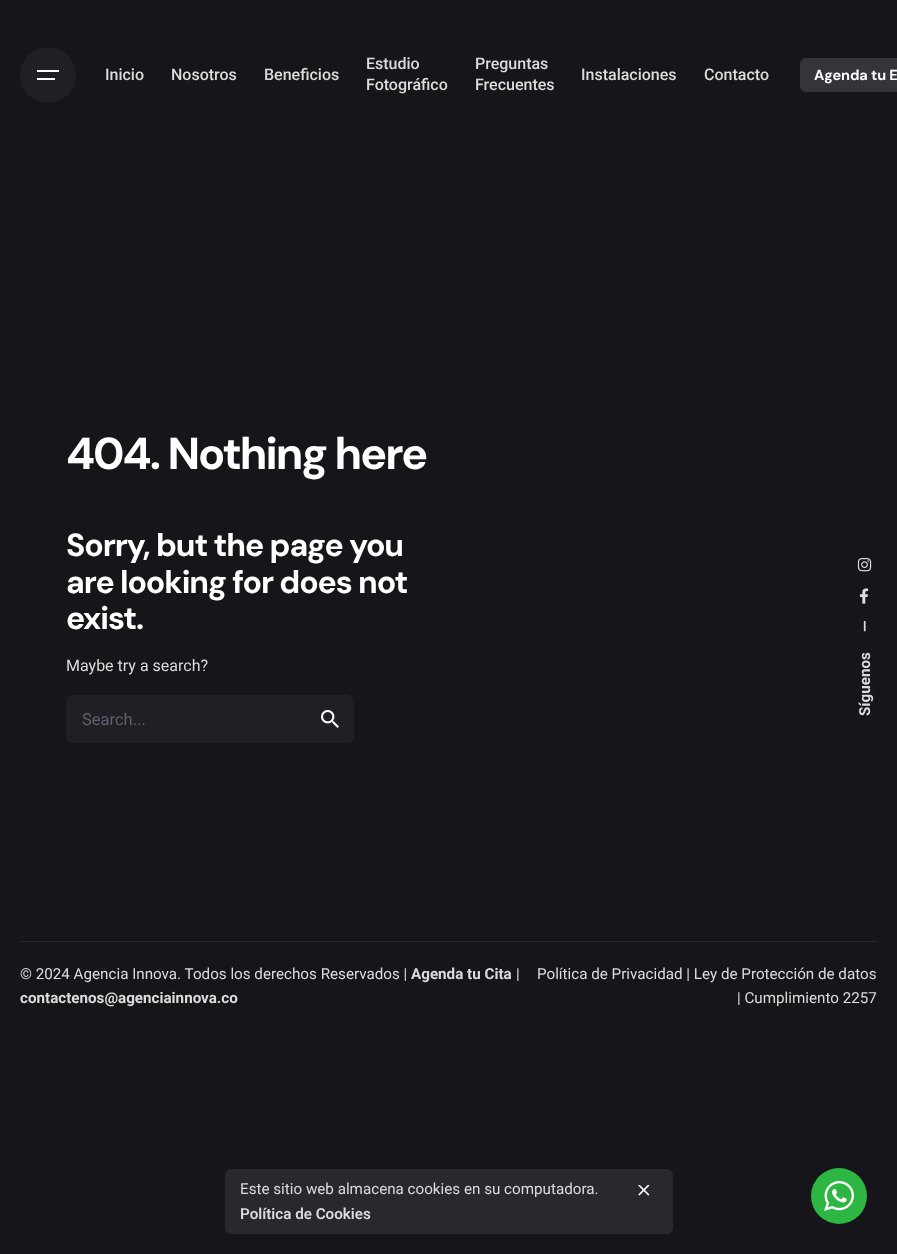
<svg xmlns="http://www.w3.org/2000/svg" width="897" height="1254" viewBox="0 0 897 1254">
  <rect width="100%" height="100%" fill="rgb(22,21,25)"/>
  <circle cx="48" cy="75" r="28" fill="rgb(32,31,36)"/>
  <rect x="37" y="70" width="22" height="2" fill="rgb(255,255,255)"/>
  <rect x="37" y="78" width="18" height="2" fill="rgb(255,255,255)"/>
  <g font-family="Roboto" font-size="16" font-weight="500" fill="rgb(220,220,221)">
    <text x="105" y="80">Inicio</text>
    <text x="171" y="80">Nosotros</text>
    <text x="264" y="80">Beneficios</text>
    <text>
      <tspan x="366" y="69">Estudio</tspan>
      <tspan x="366" y="90">Fotográfico</tspan>
    </text>
    <text>
      <tspan x="475" y="69">Preguntas</tspan>
      <tspan x="475" y="90">Frecuentes</tspan>
    </text>
    <text x="581" y="80">Instalaciones</text>
    <text x="704" y="80">Contacto</text>
  </g>
  <rect x="800" y="58" width="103" height="34" rx="6" fill="rgb(54,52,59)"/>
  <text x="814" y="80" font-family="DM Sans" font-size="14.5" font-weight="bold" letter-spacing="-0.1" fill="rgb(255,255,255)">Agenda tu E</text>
  <text x="66" y="469" font-family="DM Sans" font-size="44.75" font-weight="bold" letter-spacing="-2" fill="rgb(255,255,255)">404. Nothing here</text>
  <g font-family="DM Sans" font-size="32" font-weight="bold" letter-spacing="-1.1" fill="rgb(255,255,255)">
    <text>
      <tspan x="66" y="556">Sorry, but the page you</tspan>
      <tspan x="66" y="593">are looking for does not</tspan>
      <tspan x="66" y="629">exist.</tspan>
    </text>
  </g>
  <text x="66" y="671" font-family="Roboto" font-size="16" fill="rgb(220,220,221)">Maybe try a search?</text>
  <rect x="66" y="695" width="288" height="48" rx="6" fill="rgb(32,31,36)"/>
  <text x="82" y="725" font-family="Roboto" font-size="16.5" fill="rgb(99,93,111)">Search...</text>
  <image x="321" y="710" width="18" height="18" href="pic1.png"/>
  <image x="857" y="558" width="15" height="14" href="pic2.png"/>
  <image x="859" y="588" width="10" height="16" href="pic3.png"/>
  <g font-family="Roboto" font-size="15.2" font-weight="bold" fill="rgb(220,220,221)">
    <text x="870" y="632" transform="rotate(-90 870 632)">—</text>
    <text x="870" y="716" transform="rotate(-90 870 716)">Síguenos</text>
  </g>
  <rect x="20" y="941" width="857" height="1" fill="rgb(41,39,46)"/>
  <text x="20" y="979" font-family="Roboto" font-size="15.2" fill="rgb(220,220,221)">© 2024 Agencia Innova. Todos los derechos Reservados |</text>
  <text x="411" y="979" font-family="Roboto" font-size="15.2" font-weight="bold" fill="rgb(220,220,221)">Agenda tu Cita</text>
  <text x="516" y="979" font-family="Roboto" font-size="15.2" fill="rgb(220,220,221)">|</text>
  <text x="20" y="1003" font-family="Roboto" font-size="15.2" font-weight="bold" fill="rgb(220,220,221)">contactenos@agenciainnova.co</text>
  <g font-family="Roboto" font-size="15.2" fill="rgb(220,220,221)">
    <text x="537" y="979">Política de Privacidad | Ley de Protección de datos</text>
    <text x="737" y="1003">| Cumplimiento 2257</text>
  </g>
  <rect x="225" y="1169" width="448" height="65" rx="6" fill="rgb(42,39,47)"/>
  <text x="240" y="1194" font-family="Roboto" font-size="15.2" fill="rgb(220,220,221)">Este sitio web almacena cookies en su computadora.</text>
  <text x="240" y="1219" font-family="Roboto" font-size="15.2" font-weight="600" fill="rgb(220,220,221)">Política de Cookies</text>
  <image x="638" y="1185" width="12" height="11" href="pic4.png"/>
  <circle cx="839" cy="1196" r="28" fill="rgb(45,183,66)"/>
  <image x="824" y="1181" width="30" height="30" href="pic5.png"/>
</svg>
